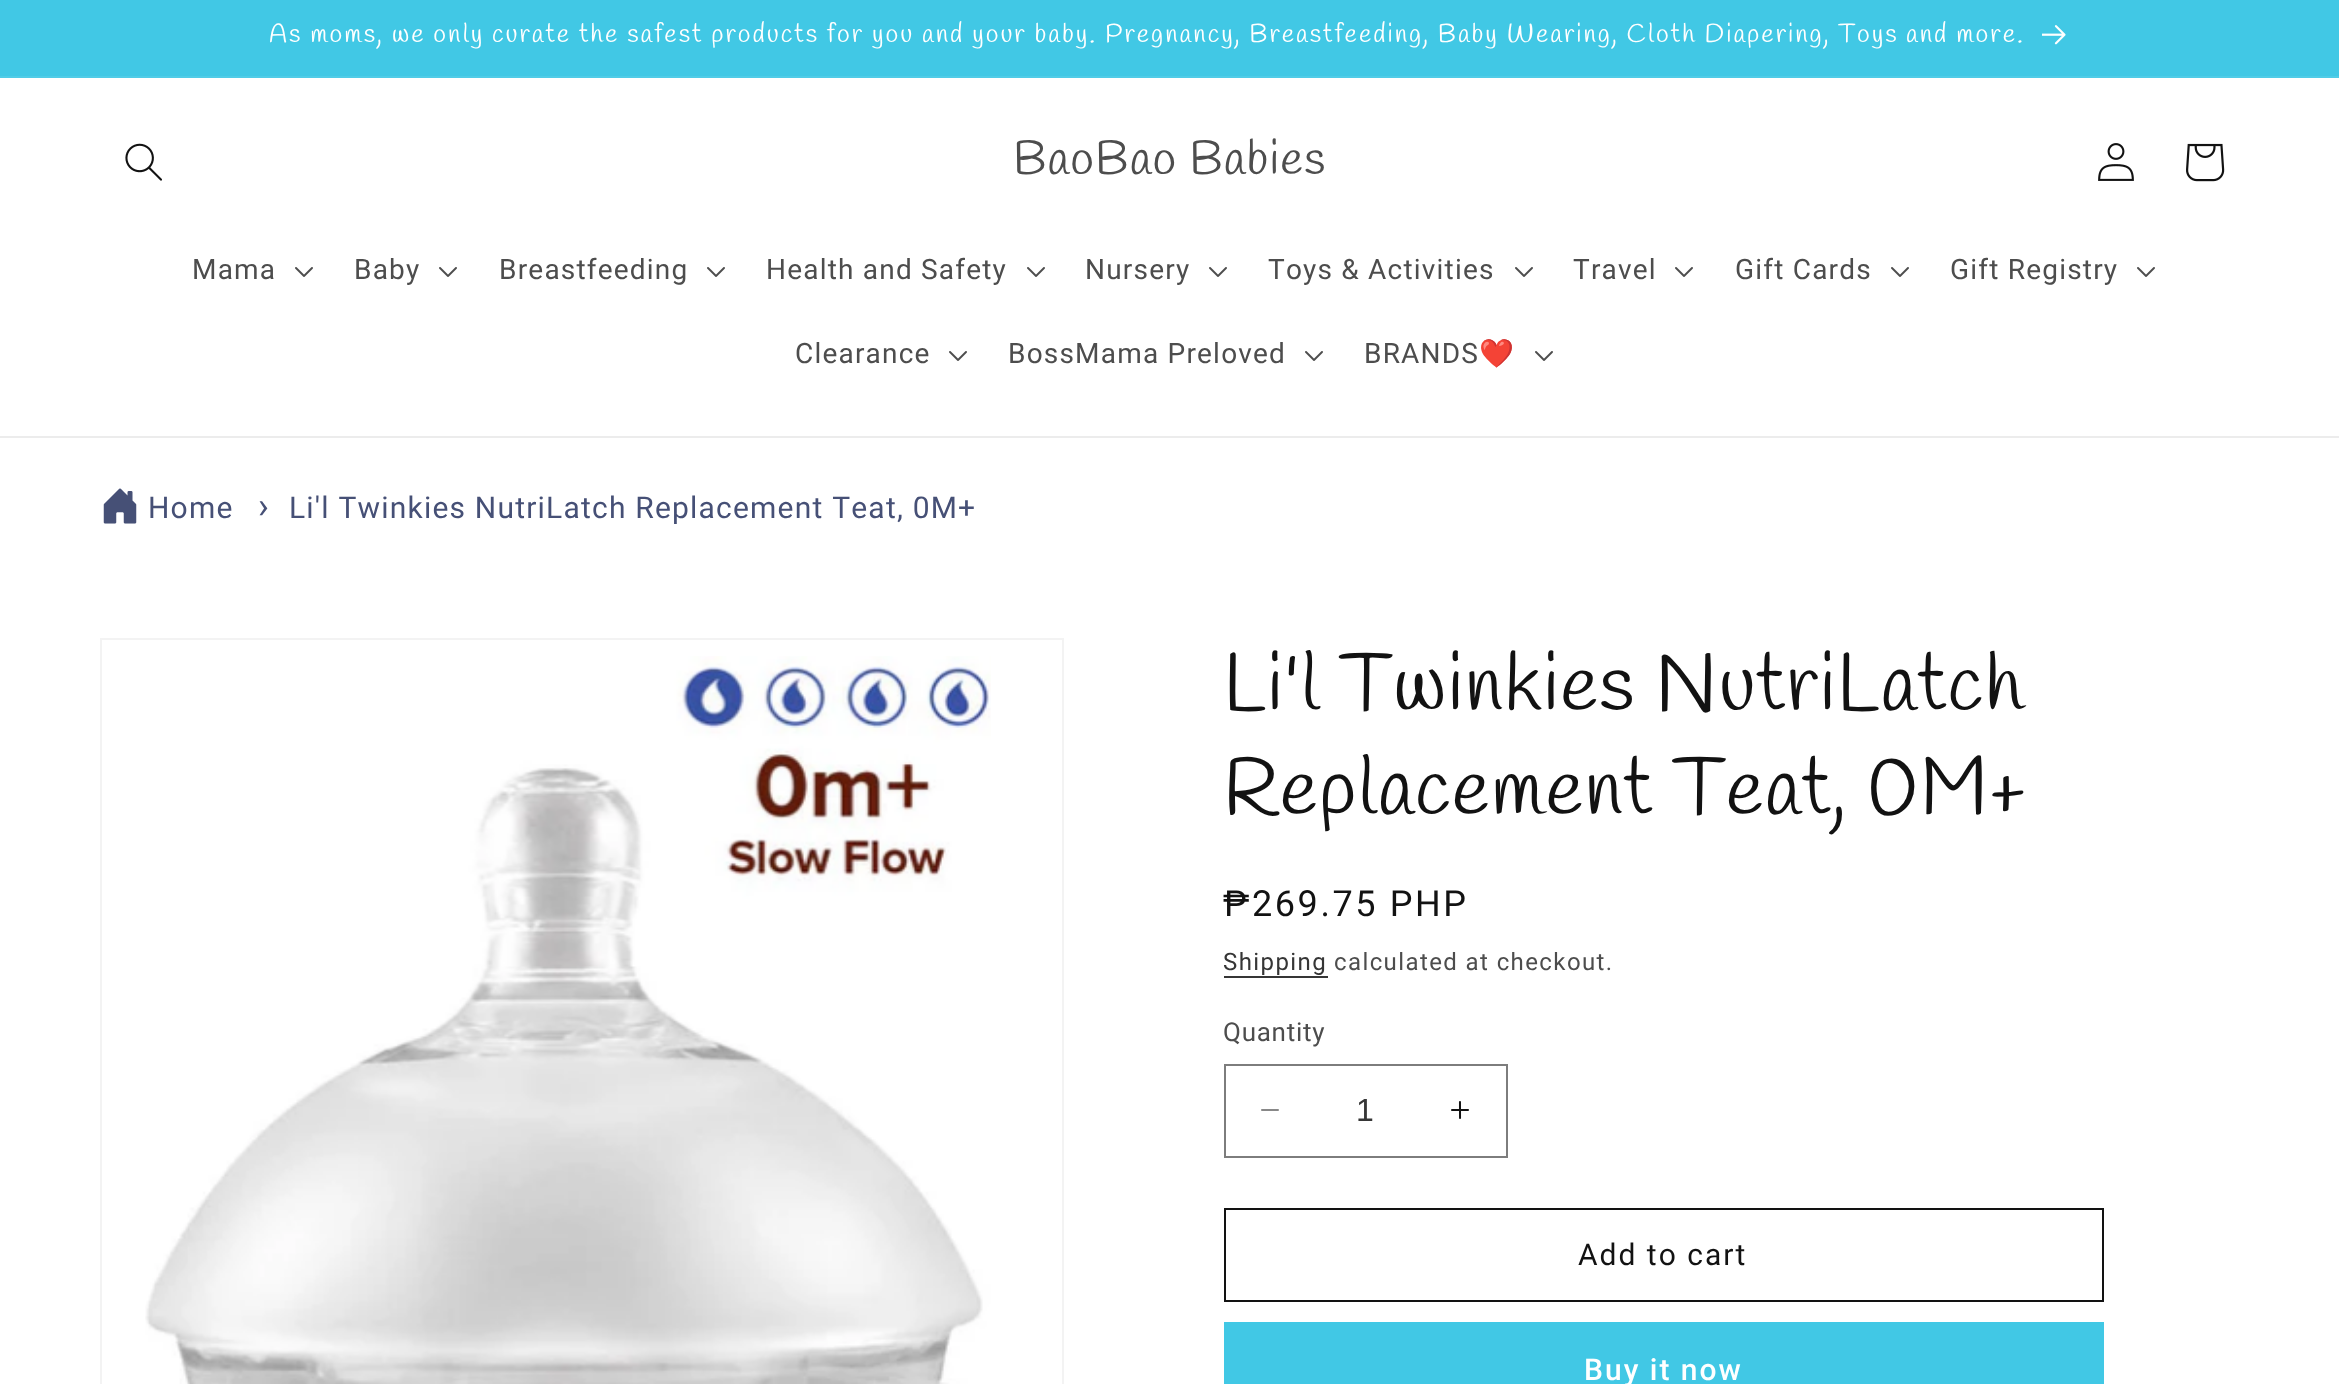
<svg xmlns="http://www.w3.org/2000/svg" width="2339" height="1384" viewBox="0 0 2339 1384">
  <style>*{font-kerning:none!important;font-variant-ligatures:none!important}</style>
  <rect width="100%" height="100%" fill="rgb(255,255,255)"/>
  <rect x="0" y="0" width="2339" height="76" fill="rgb(65,200,229)"/>
  <rect x="0" y="76" width="2339" height="2" fill="rgb(80,204,231)"/>
  <text x="269" y="42" font-family="Handlee" font-size="26" letter-spacing="2" fill="rgb(255,255,255)">As moms, we only curate the safest products for you and your baby. Pregnancy, Breastfeeding, Baby Wearing, Cloth Diapering, Toys</text>
  <text x="1906" y="42" font-family="Handlee" font-size="26" letter-spacing="2" fill="rgb(255,255,255)">and more.</text>
  <image x="2042" y="25" width="24" height="20" href="pic1.png"/>
  <rect x="0" y="436" width="2339" height="2" fill="rgb(236,236,236)"/>
  <image x="125" y="143" width="37" height="38" href="pic2.png"/>
  <text x="1013" y="174" font-family="Handlee" font-size="48" letter-spacing="1.2" fill="rgb(77,77,77)">BaoBao Babies</text>
  <image x="2098" y="143" width="36" height="38" href="pic3.png"/>
  <image x="2186" y="143" width="39" height="39" href="pic4.png"/>
  <text x="192" y="279" font-family="Roboto" font-size="28" letter-spacing="1.2" fill="rgb(77,77,77)">Mama</text>
  <image x="295" y="267" width="18" height="10" href="pic5.png"/>
  <text x="354" y="279" font-family="Roboto" font-size="28" letter-spacing="1.2" fill="rgb(77,77,77)">Baby</text>
  <image x="439" y="267" width="18" height="10" href="pic5.png"/>
  <text x="499" y="279" font-family="Roboto" font-size="28" letter-spacing="1.2" fill="rgb(77,77,77)">Breastfeeding</text>
  <image x="707" y="267" width="18" height="10" href="pic5.png"/>
  <text x="766" y="279" font-family="Roboto" font-size="28" letter-spacing="1.2" fill="rgb(77,77,77)">Health and Safety</text>
  <image x="1027" y="267" width="18" height="10" href="pic5.png"/>
  <text x="1085" y="279" font-family="Roboto" font-size="28" letter-spacing="1.2" fill="rgb(77,77,77)">Nursery</text>
  <image x="1209" y="267" width="18" height="10" href="pic5.png"/>
  <text x="1268" y="279" font-family="Roboto" font-size="28" letter-spacing="1.2" fill="rgb(77,77,77)">Toys &amp; Activities</text>
  <image x="1515" y="267" width="18" height="10" href="pic5.png"/>
  <text x="1573" y="279" font-family="Roboto" font-size="28" letter-spacing="1.2" fill="rgb(77,77,77)">Travel</text>
  <image x="1675" y="267" width="18" height="10" href="pic5.png"/>
  <text x="1735" y="279" font-family="Roboto" font-size="28" letter-spacing="1.2" fill="rgb(77,77,77)">Gift Cards</text>
  <image x="1891" y="267" width="18" height="10" href="pic5.png"/>
  <text x="1950" y="279" font-family="Roboto" font-size="28" letter-spacing="1.2" fill="rgb(77,77,77)">Gift Registry</text>
  <image x="2137" y="267" width="18" height="10" href="pic5.png"/>
  <text x="795" y="363" font-family="Roboto" font-size="28" letter-spacing="1.2" fill="rgb(77,77,77)">Clearance</text>
  <image x="949" y="351" width="18" height="10" href="pic5.png"/>
  <text x="1008" y="363" font-family="Roboto" font-size="28" letter-spacing="1.2" fill="rgb(77,77,77)">BossMama Preloved</text>
  <image x="1305" y="351" width="18" height="10" href="pic5.png"/>
  <text x="1364" y="363" font-family="Roboto" font-size="28" letter-spacing="1.2" fill="rgb(77,77,77)">BRANDS</text>
  <text x="1479" y="363" font-family="Noto Color Emoji" font-size="28" letter-spacing="1.2" fill="rgb(77,77,77)">❤</text>
  <image x="1535" y="351" width="18" height="10" href="pic5.png"/>
  <image x="103" y="488" width="34" height="36" href="pic6.png"/>
  <text x="148" y="518" font-family="Roboto" font-size="30" letter-spacing="1.2" fill="rgb(70,80,118)">Home</text>
  <text x="258" y="518" font-family="Roboto" font-size="36" letter-spacing="1.2" fill="rgb(70,80,118)">›</text>
  <text x="289" y="518" font-family="Roboto" font-size="30" letter-spacing="1.2" fill="rgb(70,80,118)">Li'l Twinkies NutriLatch Replacement Teat, 0M+</text>
  <rect x="101" y="639" width="962" height="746" fill="none" stroke="rgb(243,243,243)" stroke-width="2"/>
  <image x="145" y="656" width="846" height="728" href="pic7.png"/>
  <g font-family="Handlee" font-size="80" letter-spacing="1.2" fill="rgb(18,18,18)">
    <text x="1223" y="710">Li'l Twinkies</text>
    <text x="1655" y="710">NutriLatch</text>
    <text x="1223" y="814">Replacement Teat, 0M+</text>
  </g>
  <text x="1223" y="916" font-family="Roboto" font-size="36" letter-spacing="2.6" fill="rgb(18,18,18)">₱269.75 PHP</text>
  <text x="1223" y="970" font-family="Roboto" font-size="24" letter-spacing="1.4" fill="rgb(54,54,54)">Shipping</text>
  <rect x="1224" y="976" width="104" height="2" fill="rgb(54,54,54)"/>
  <text x="1334" y="970" font-family="Roboto" font-size="24" letter-spacing="1.4" fill="rgb(77,77,77)">calculated at checkout.</text>
  <text x="1223" y="1041" font-family="Roboto" font-size="26" letter-spacing="0.75" fill="rgb(77,77,77)">Quantity</text>
  <image x="1261" y="1109" width="18" height="2" href="pic8.png"/>
  <image x="1451" y="1101" width="18" height="18" href="pic9.png"/>
  <rect x="1225" y="1065" width="282" height="92" fill="none" stroke="rgb(125,125,125)" stroke-width="2"/>
  <text x="1356" y="1121" font-family="Liberation Sans" font-size="32" fill="rgb(54,54,54)">1</text>
  <rect x="1225" y="1209" width="878" height="92" fill="none" stroke="rgb(18,18,18)" stroke-width="2"/>
  <text x="1578" y="1265" font-family="Roboto" font-size="30" letter-spacing="2" fill="rgb(18,18,18)">Add to cart</text>
  <rect x="1224" y="1322" width="880" height="62" fill="rgb(65,200,229)"/>
  <text x="1584" y="1380" font-family="Roboto" font-size="30" font-weight="500" letter-spacing="2" fill="rgb(255,255,255)">Buy it now</text>
</svg>
